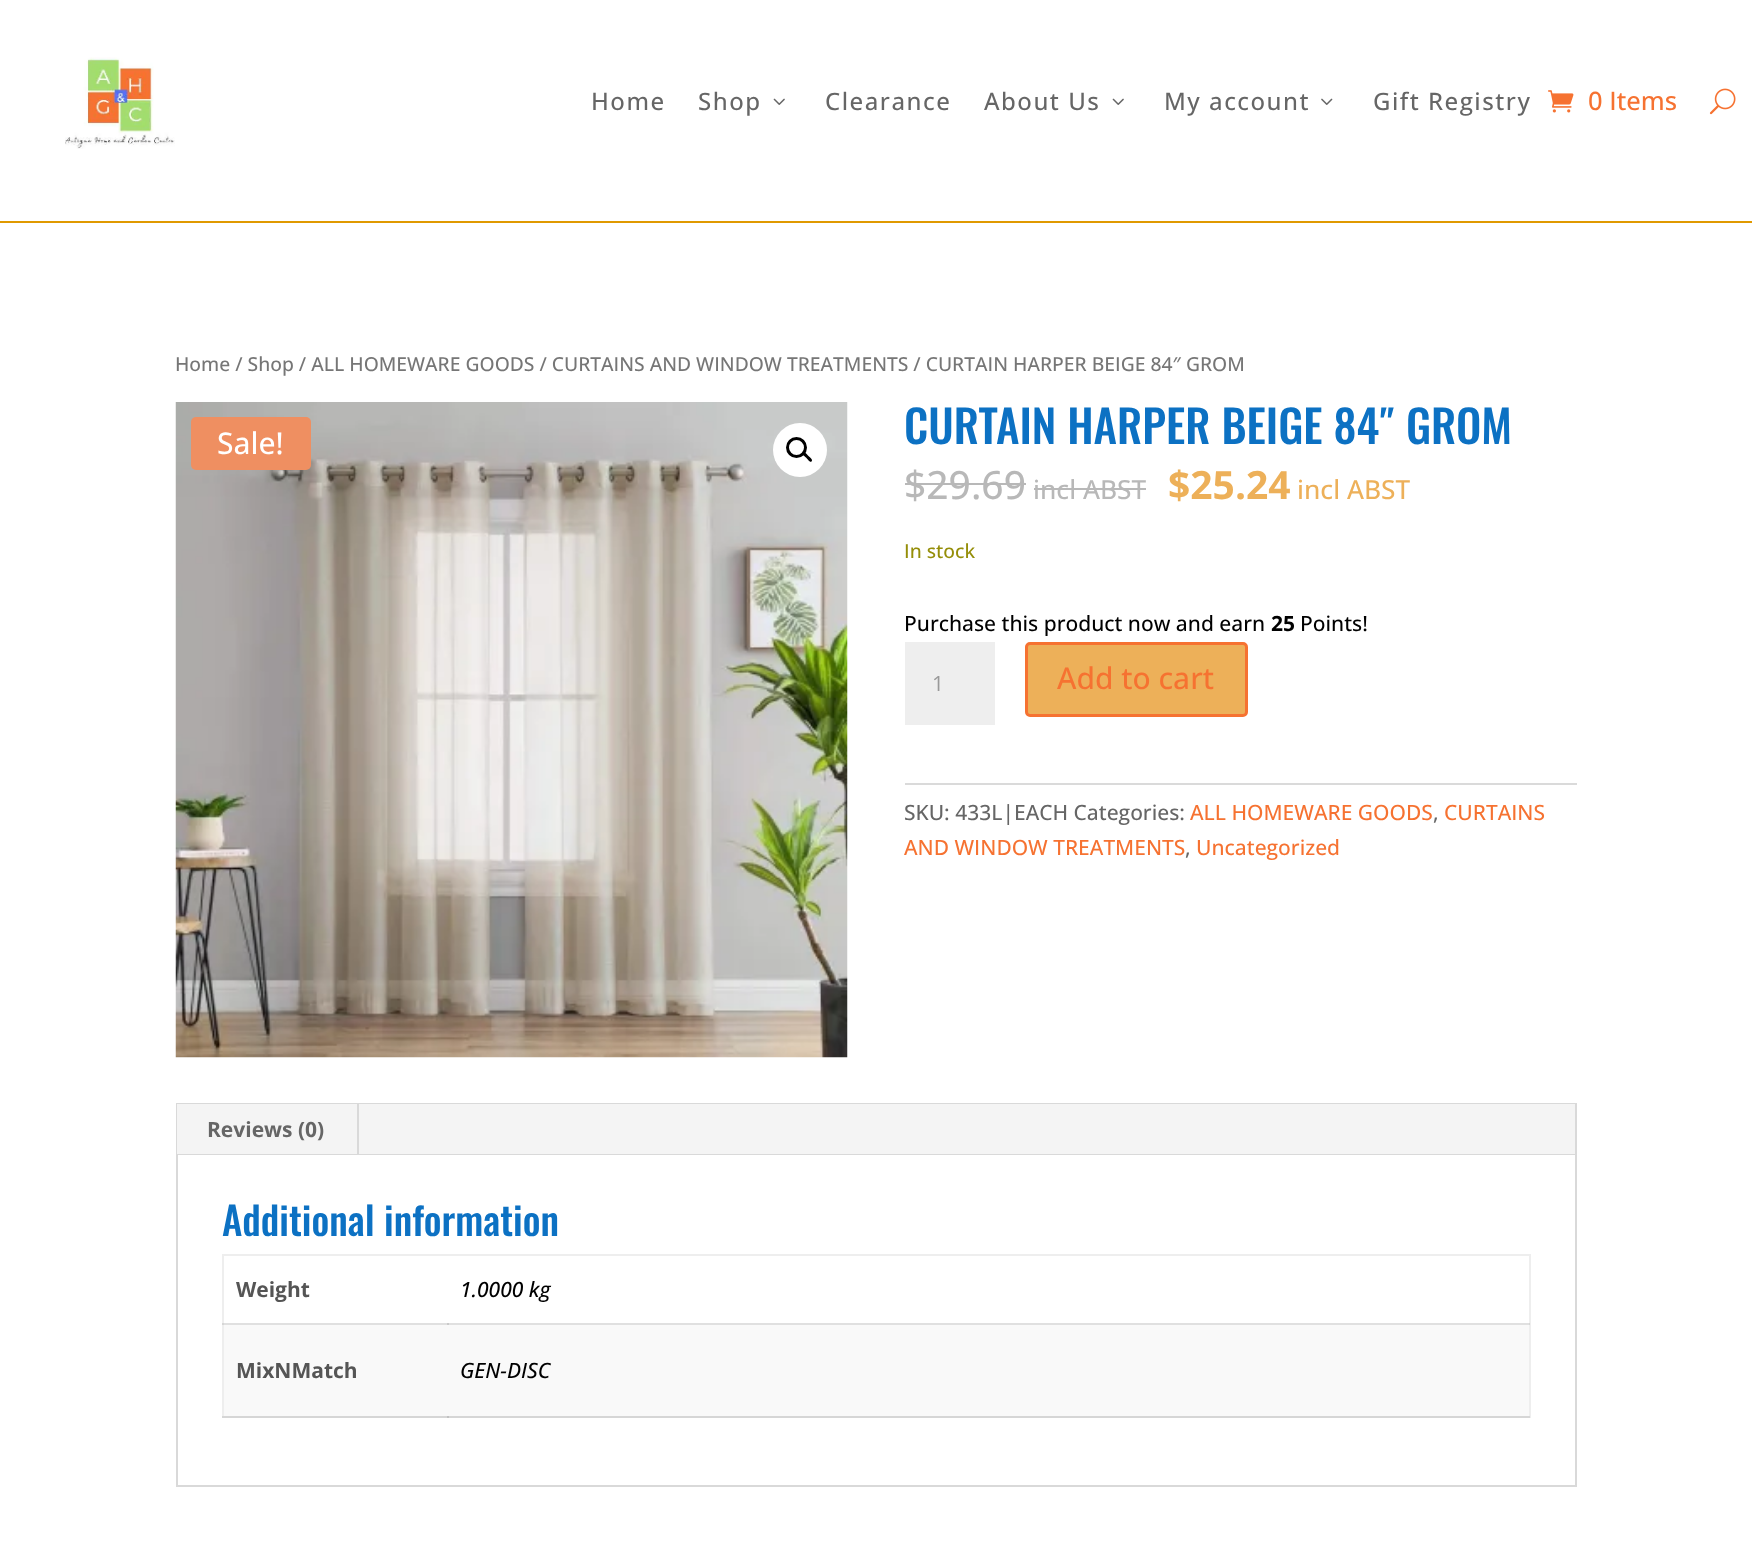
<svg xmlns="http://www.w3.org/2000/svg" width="1752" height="1554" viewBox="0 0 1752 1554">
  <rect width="100%" height="100%" fill="rgb(255,255,255)"/>
  <rect x="0" y="221" width="1752" height="2" fill="rgb(224,153,0)"/>
  <image x="65" y="57" width="110" height="92" href="pic1.png"/>
  <g font-family="Open Sans" font-size="24" font-weight="500" letter-spacing="1.5" fill="rgb(102,102,102)">
    <text x="591" y="110">Home</text>
    <text x="698" y="110">Shop</text>
  </g>
  <image x="773" y="98" width="12" height="7" href="pic2.png"/>
  <g font-family="Open Sans" font-size="24" font-weight="500" letter-spacing="1.5" fill="rgb(102,102,102)">
    <text x="825" y="110">Clearance</text>
    <text x="984" y="110">About Us</text>
  </g>
  <image x="1112" y="98" width="12" height="7" href="pic2.png"/>
  <text x="1164" y="110" font-family="Open Sans" font-size="24" font-weight="500" letter-spacing="1.5" fill="rgb(102,102,102)">My account</text>
  <image x="1321" y="98" width="12" height="7" href="pic3.png"/>
  <text x="1373" y="110" font-family="Open Sans" font-size="24" font-weight="500" letter-spacing="1.5" fill="rgb(102,102,102)">Gift Registry</text>
  <image x="1548" y="90" width="26" height="23" href="pic4.png"/>
  <text x="1588" y="110" font-family="Open Sans" font-size="25.5" font-weight="500" fill="rgb(246,114,49)">0 Items</text>
  <image x="1709" y="88" width="27" height="27" href="pic5.png"/>
  <text x="175" y="371" font-family="Open Sans" font-size="19.32" font-weight="500" fill="rgb(118,118,118)">Home / Shop / ALL HOMEWARE GOODS / CURTAINS AND WINDOW TREATMENTS / CURTAIN HARPER BEIGE 84″ GROM</text>
  <image x="175" y="402" width="673" height="656" href="pic6.png"/>
  <circle cx="800" cy="450" r="27" fill="rgb(255,255,255)"/>
  <circle cx="796.5" cy="447.5" r="9" fill="none" stroke="rgb(0,0,0)" stroke-width="3"/>
  <path d="M803 453C805 451 807.5 455 808.5 456C809.5 457 813.5 459.5 811.5 461.5C810 463 807.5 459 806.5 458C805.5 457 801.5 454.5 803 453Z" fill="rgb(0,0,0)"/>
  <text x="904" y="444" font-family="Oswald" font-size="45" font-weight="500" fill="rgb(12,113,195)">CURTAIN HARPER BEIGE 84″ GROM</text>
  <text x="904" y="499" font-family="Open Sans" font-size="39" font-weight="500" fill="rgb(184,184,184)">$29.69</text>
  <rect x="905" y="483" width="121" height="2" fill="rgb(184,184,184)"/>
  <text x="1033" y="499" font-family="Open Sans" font-size="26.25" font-weight="500" fill="rgb(184,184,184)">incl ABST</text>
  <rect x="1034" y="488" width="112" height="2" fill="rgb(184,184,184)"/>
  <text x="1168" y="499" font-family="Open Sans" font-size="39" font-weight="bold" fill="rgb(237,176,89)">$25.24</text>
  <text x="1297" y="499" font-family="Open Sans" font-size="26.25" font-weight="500" fill="rgb(237,176,89)">incl ABST</text>
  <text x="904" y="558" font-family="Open Sans" font-size="19.32" font-weight="500" fill="rgb(149,142,9)">In stock</text>
  <text x="904" y="631" font-family="Open Sans" font-size="21" font-weight="500" fill="rgb(0,0,0)">Purchase this product now and earn</text>
  <text x="1271" y="631" font-family="Open Sans" font-size="21" font-weight="bold" fill="rgb(0,0,0)">25</text>
  <text x="1300" y="631" font-family="Open Sans" font-size="21" font-weight="500" fill="rgb(0,0,0)">Points!</text>
  <rect x="905" y="642" width="90" height="83" fill="rgb(238,238,238)"/>
  <text x="932" y="691" font-family="Open Sans" font-size="21" fill="rgb(153,153,153)">1</text>
  <rect x="1026.5" y="643.5" width="220" height="72" rx="3.5" fill="rgb(237,176,89)" stroke="rgb(246,114,49)" stroke-width="3"/>
  <text x="1057" y="689" font-family="Open Sans" font-size="30" font-weight="500" fill="rgb(246,114,49)">Add to cart</text>
  <rect x="905" y="783" width="672" height="2" fill="rgb(218,218,218)"/>
  <text x="904" y="820" font-family="Open Sans" font-size="21" font-weight="500" fill="rgb(102,102,102)">SKU: 433L|EACH Categories:</text>
  <text x="1190" y="820" font-family="Open Sans" font-size="21" font-weight="500" fill="rgb(246,114,49)">ALL HOMEWARE GOODS</text>
  <text x="1433" y="820" font-family="Open Sans" font-size="21" font-weight="500" fill="rgb(102,102,102)">,</text>
  <g font-family="Open Sans" font-size="21" font-weight="500" fill="rgb(246,114,49)">
    <text x="1444" y="820">CURTAINS</text>
    <text x="904" y="855">AND WINDOW TREATMENTS</text>
  </g>
  <text x="1185" y="855" font-family="Open Sans" font-size="21" font-weight="500" fill="rgb(102,102,102)">,</text>
  <text x="1196" y="855" font-family="Open Sans" font-size="21" font-weight="500" fill="rgb(246,114,49)">Uncategorized</text>
  <rect x="191" y="417" width="120" height="53" rx="5" fill="rgb(239,143,97)"/>
  <text x="217" y="454" font-family="Open Sans" font-size="30" font-weight="500" fill="rgb(255,255,255)">Sale!</text>
  <rect x="177" y="1104" width="1399" height="382" fill="none" stroke="rgb(217,217,217)" stroke-width="2"/>
  <rect x="177" y="1104" width="1398" height="50" fill="rgb(244,244,244)"/>
  <rect x="357" y="1104" width="2" height="51" fill="rgb(217,217,217)"/>
  <text x="207" y="1137" font-family="Open Sans" font-size="21" font-weight="bold" fill="rgb(102,102,102)">Reviews (0)</text>
  <rect x="177" y="1154" width="1398" height="1" fill="rgb(217,217,217)"/>
  <text x="222" y="1236" font-family="Oswald" font-size="39" font-weight="500" fill="rgb(12,113,195)">Additional information</text>
  <rect x="222" y="1254" width="1308" height="2" fill="rgb(238,238,238)"/>
  <rect x="222" y="1323" width="1308" height="2" fill="rgb(224,224,224)"/>
  <rect x="1529" y="1254" width="2" height="164" fill="rgb(238,238,238)"/>
  <rect x="1529" y="1323" width="1" height="2" fill="rgb(214,214,214)"/>
  <rect x="222" y="1416" width="1308" height="2" fill="rgb(214,214,214)"/>
  <rect x="222" y="1254" width="2" height="164" fill="rgb(238,238,238)"/>
  <rect x="222" y="1323" width="2" height="2" fill="rgb(214,214,214)"/>
  <rect x="222" y="1416" width="2" height="2" fill="rgb(214,214,214)"/>
  <text x="236" y="1297" font-family="Open Sans" font-size="21" font-weight="bold" fill="rgb(85,85,85)">Weight</text>
  <text x="460" y="1297" font-family="Open Sans" font-size="21" font-weight="500" font-style="italic" fill="rgb(0,0,0)">1.0000 kg</text>
  <rect x="224" y="1325" width="1305" height="91" fill="rgb(249,249,249)"/>
  <text x="236" y="1378" font-family="Open Sans" font-size="21" font-weight="bold" fill="rgb(85,85,85)">MixNMatch</text>
  <rect x="447" y="1323" width="2" height="2" fill="rgb(202,202,202)"/>
  <rect x="447" y="1416" width="2" height="2" fill="rgb(193,193,193)"/>
  <text x="460" y="1378" font-family="Open Sans" font-size="21" font-weight="500" font-style="italic" fill="rgb(0,0,0)">GEN-DISC</text>
</svg>
